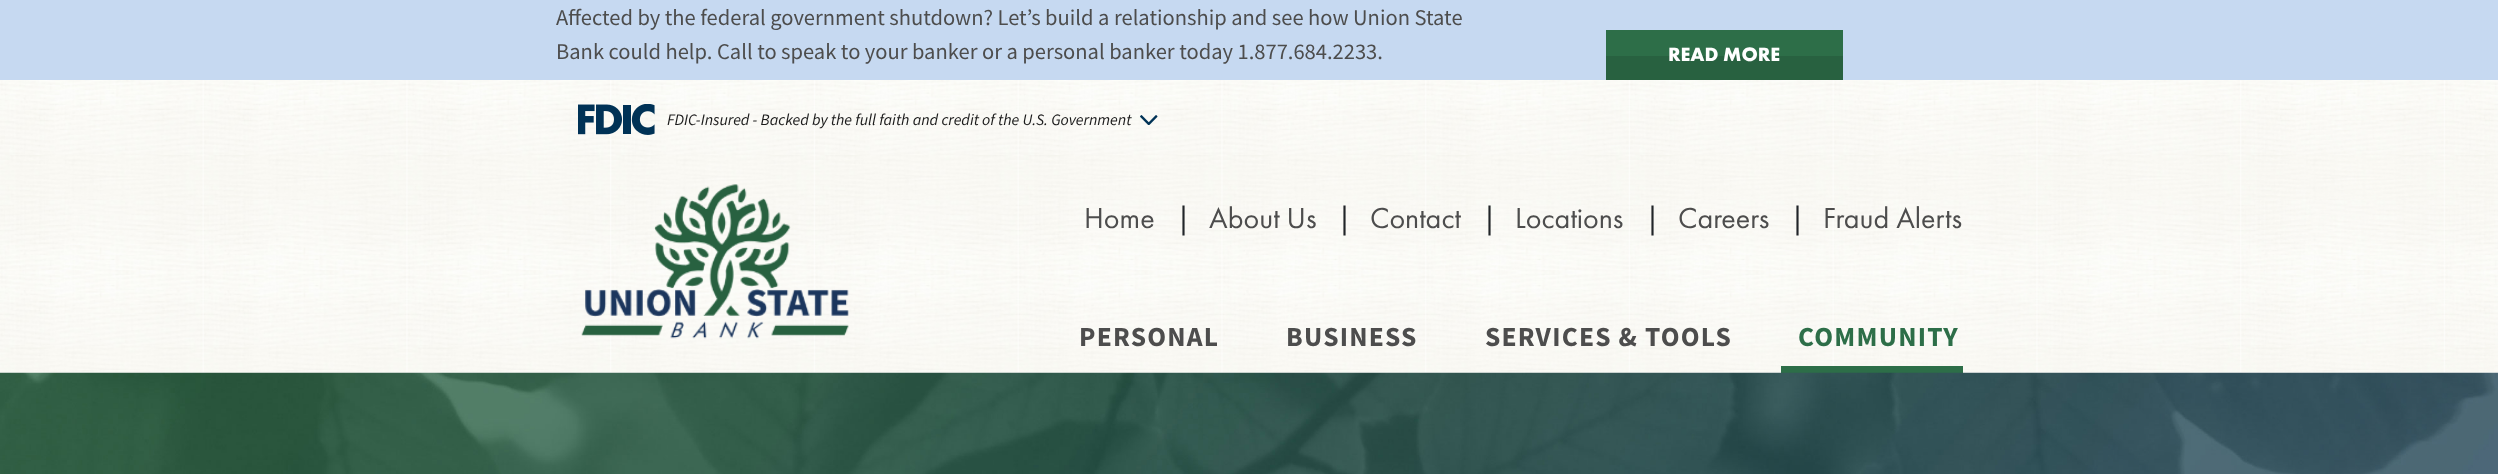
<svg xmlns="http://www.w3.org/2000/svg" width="2498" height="474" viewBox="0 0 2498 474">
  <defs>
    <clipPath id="clip1"><rect x="1606" y="30" width="237" height="50"/></clipPath>
  </defs>
  <rect width="100%" height="100%" fill="rgb(255,255,255)"/>
  <rect x="0" y="0" width="2498" height="80" fill="rgb(198,217,241)"/>
  <g font-family="Source Sans Pro" font-size="22.5" fill="rgb(77,77,77)">
    <text>
      <tspan x="556" y="25">Affected by the federal government shutdown? Let’s build a relationship and see how Union State</tspan>
      <tspan x="556" y="59">Bank could help. Call to speak to your banker or a personal banker today 1.877.684.2233.</tspan>
    </text>
  </g>
  <rect x="1606" y="56" width="237" height="24" fill="rgb(40,97,64)"/>
  <g clip-path="url(#clip1)">
    <path d="M1482-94H1966V204H1482ZM1606 56H1842C1859 56 1872 70 1872 86V136C1872 153 1859 166 1842 166H1606C1590 166 1576 153 1576 136V86C1576 70 1590 56 1606 56Z" fill="rgb(45,110,72)" fill-rule="evenodd"/>
  </g>
  <text x="1668" y="61" font-family="Futura PT" font-size="20" font-weight="bold" fill="rgb(255,255,255)">READ MORE</text>
  <image x="0" y="80" width="2498" height="293" href="pic1.png"/>
  <image x="578" y="104" width="77" height="31" href="pic2.png"/>
  <text x="667" y="125" font-family="'Source Sans 3'" font-size="16" font-style="italic" fill="rgb(27,27,27)">FDIC-Insured - Backed by the full faith and credit of the U.S. Government</text>
  <image x="1140" y="115" width="18" height="10" href="pic3.png"/>
  <image x="581" y="184" width="268" height="155" href="pic4.png"/>
  <text x="1084" y="228" font-family="Futura PT" font-size="30" fill="rgb(77,77,77)">Home</text>
  <text x="1176" y="228" font-family="Futura PT" font-size="30" fill="rgb(33,37,41)">|</text>
  <text x="1209" y="228" font-family="Futura PT" font-size="30" fill="rgb(77,77,77)">About Us</text>
  <text x="1337" y="228" font-family="Futura PT" font-size="30" fill="rgb(33,37,41)">|</text>
  <text x="1370" y="228" font-family="Futura PT" font-size="30" fill="rgb(77,77,77)">Contact</text>
  <text x="1482" y="228" font-family="Futura PT" font-size="30" fill="rgb(33,37,41)">|</text>
  <text x="1515" y="228" font-family="Futura PT" font-size="30" fill="rgb(77,77,77)">Locations</text>
  <text x="1645" y="228" font-family="Futura PT" font-size="30" fill="rgb(33,37,41)">|</text>
  <text x="1678" y="228" font-family="Futura PT" font-size="30" fill="rgb(77,77,77)">Careers</text>
  <text x="1790" y="228" font-family="Futura PT" font-size="30" fill="rgb(33,37,41)">|</text>
  <text x="1823" y="228" font-family="Futura PT" font-size="30" fill="rgb(77,77,77)">Fraud Alerts</text>
  <g font-family="Source Sans Pro" font-size="27.5" font-weight="bold" letter-spacing="1.25" fill="rgb(77,77,77)">
    <text x="1079" y="346">PERSONAL</text>
    <text x="1286" y="346">BUSINESS</text>
    <text x="1485" y="346">SERVICES &amp; TOOLS</text>
  </g>
  <rect x="1781" y="366" width="182" height="7" fill="rgb(45,110,72)"/>
  <text x="1798" y="346" font-family="Source Sans Pro" font-size="27.5" font-weight="bold" letter-spacing="1.25" fill="rgb(45,110,72)">COMMUNITY</text>
  <image x="0" y="372" width="2498" height="102" href="pic5.png"/>
</svg>
